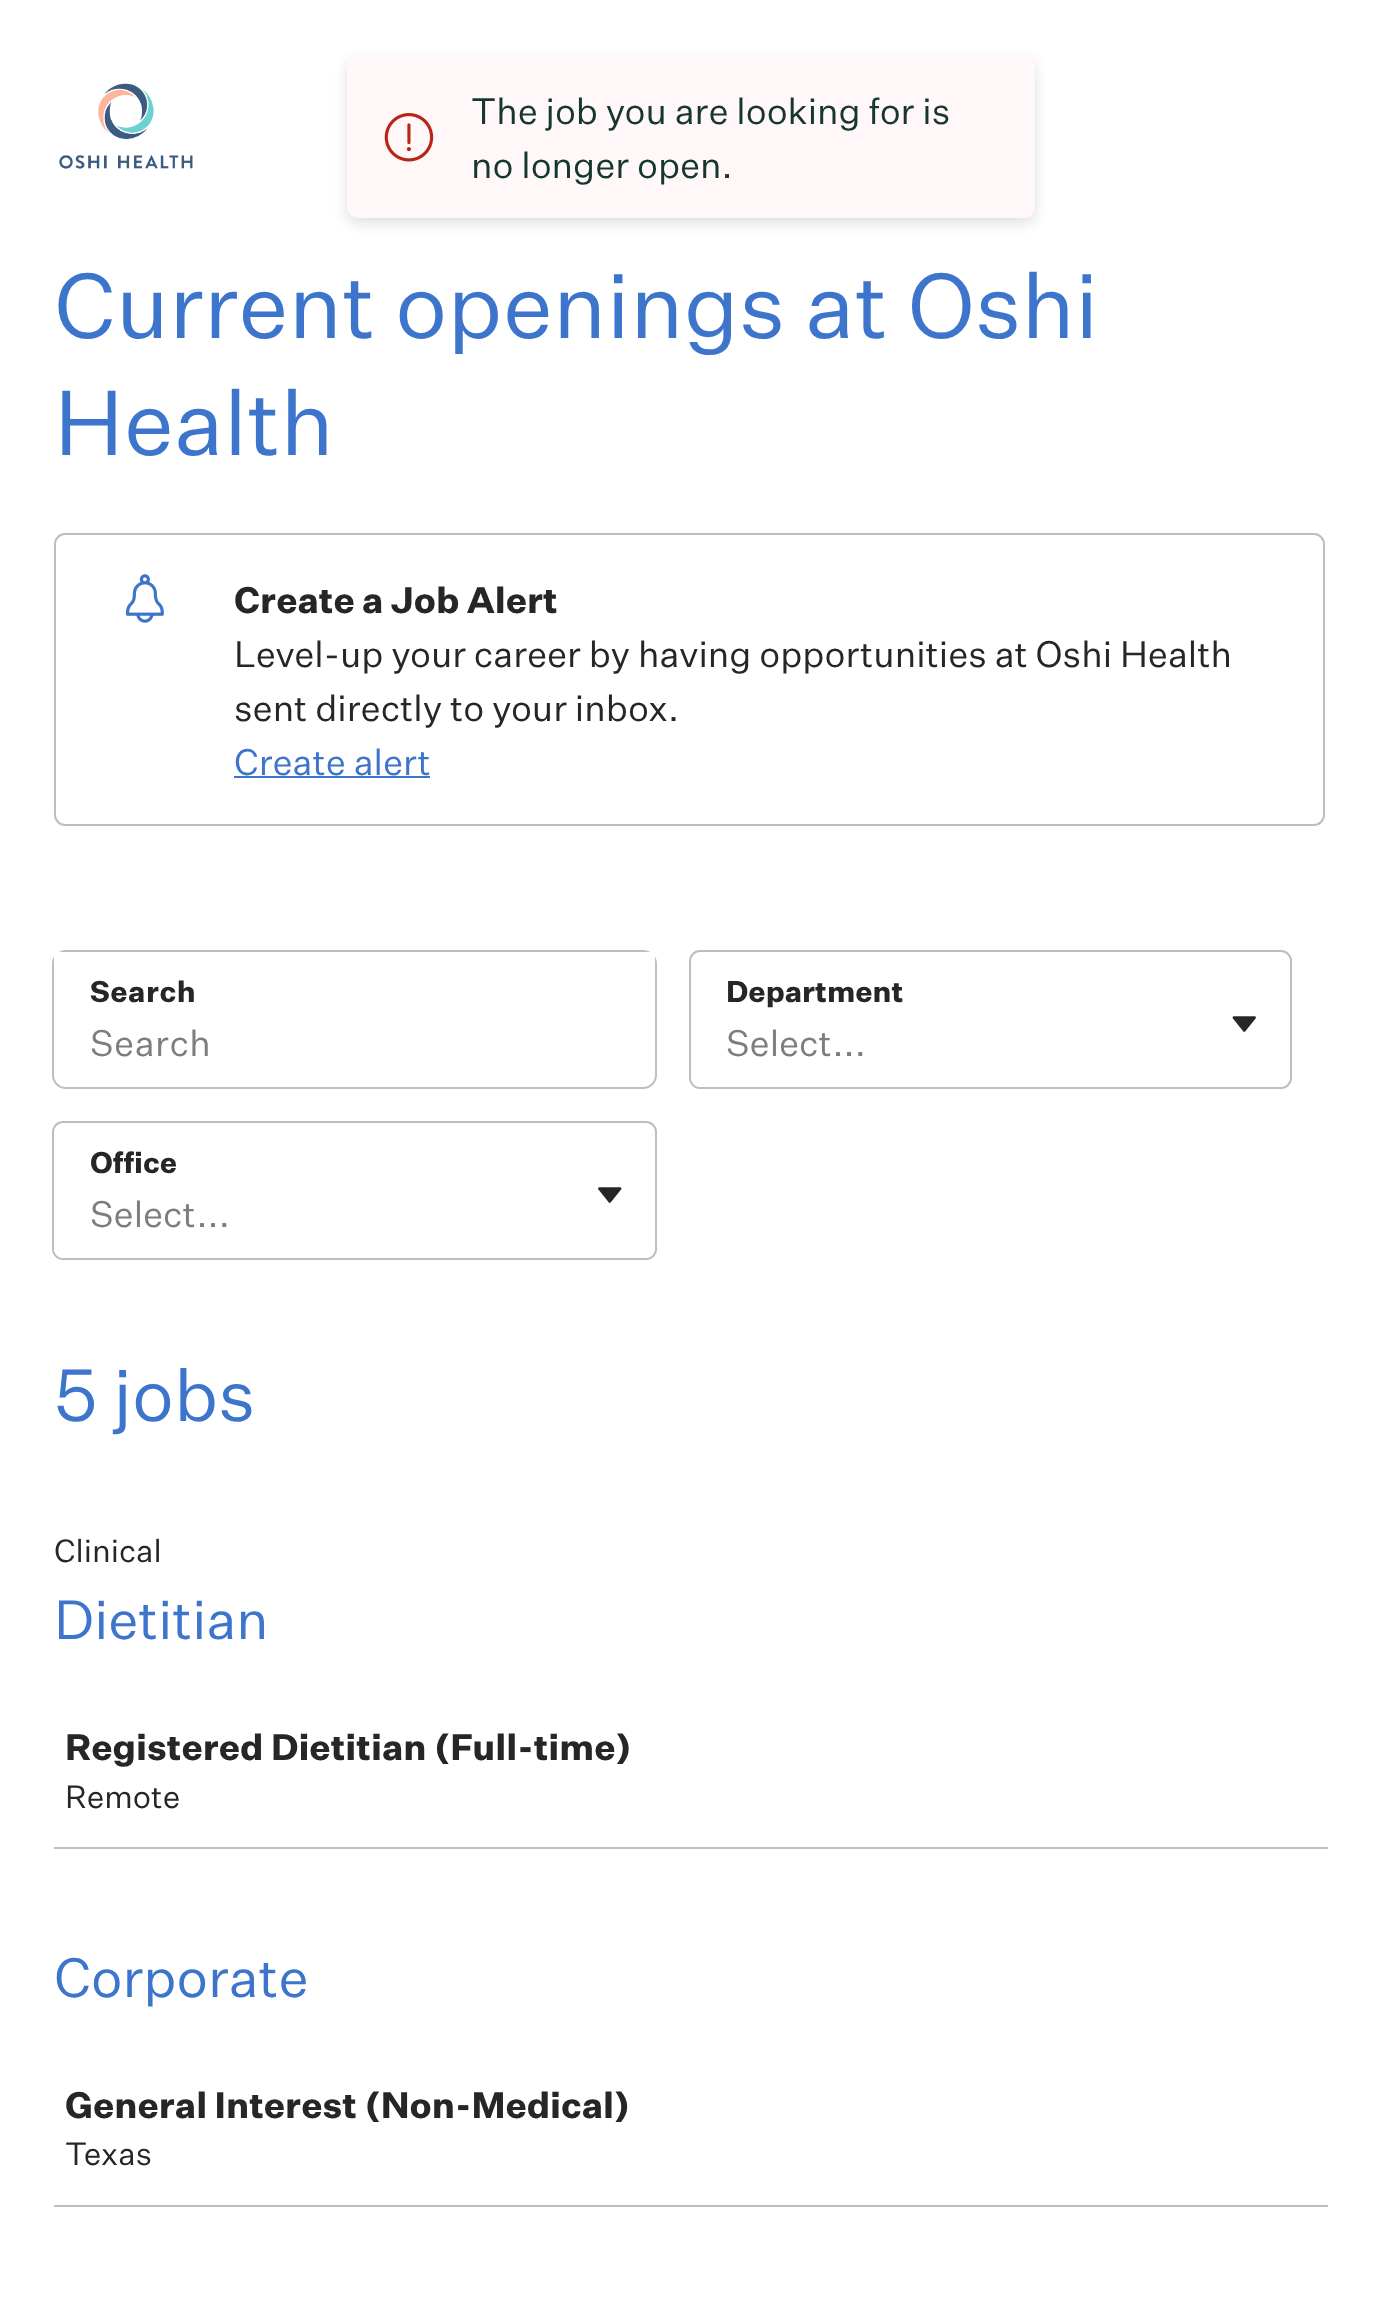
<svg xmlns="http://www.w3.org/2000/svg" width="1378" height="2297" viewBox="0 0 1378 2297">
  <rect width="100%" height="100%" fill="rgb(255,255,255)"/>
  <rect x="347" y="61" width="688" height="162" rx="11" fill="rgba(0,0,0,0.13)" filter="blur(7px)"/>
  <rect x="347" y="56" width="688" height="162" rx="11" fill="rgb(255,247,248)"/>
  <image x="384" y="113" width="50" height="49" href="pic1.png"/>
  <g font-family="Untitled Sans" font-size="36" fill="rgb(21,55,44)">
    <text>
      <tspan x="471" y="124">The job you are looking for is</tspan>
      <tspan x="471" y="178">no longer open.</tspan>
    </text>
  </g>
  <image x="59" y="83" width="134" height="86" href="pic2.png"/>
  <g font-family="Untitled Sans" font-size="90" fill="rgb(61,116,204)">
    <text>
      <tspan x="54" y="338">Current openings at Oshi</tspan>
      <tspan x="54" y="455">Health</tspan>
    </text>
  </g>
  <rect x="55" y="534" width="1269" height="291" rx="10" fill="none" stroke="rgb(190,190,190)" stroke-width="2"/>
  <image x="125" y="574" width="39" height="49" href="pic3.png"/>
  <text x="234" y="613" font-family="Untitled Sans" font-size="36" font-weight="bold" fill="rgb(38,38,38)">Create a Job Alert</text>
  <g font-family="Untitled Sans" font-size="36" fill="rgb(38,38,38)">
    <text>
      <tspan x="234" y="667">Level-up your career by having opportunities at Oshi Health</tspan>
      <tspan x="234" y="721">sent directly to your inbox.</tspan>
    </text>
  </g>
  <text x="234" y="775" font-family="Untitled Sans" font-size="36" fill="rgb(61,116,204)">Create alert</text>
  <rect x="234" y="776" width="196" height="2" fill="rgb(61,116,204)"/>
  <rect x="53" y="951" width="603" height="137" rx="13" fill="none" stroke="rgb(190,190,190)" stroke-width="2"/>
  <rect x="54" y="952" width="601" height="12" fill="rgb(255,255,255)"/>
  <text x="90" y="1002" font-family="Untitled Sans" font-size="29.25" font-weight="bold" letter-spacing="0.5" fill="rgb(38,38,38)">Search</text>
  <text x="90" y="1056" font-family="Untitled Sans" font-size="36" letter-spacing="0.5" fill="rgb(125,125,125)">Search</text>
  <rect x="690" y="951" width="601" height="137" rx="10" fill="none" stroke="rgb(190,190,190)" stroke-width="2"/>
  <text x="726" y="1002" font-family="Untitled Sans" font-size="29.25" font-weight="bold" fill="rgb(38,38,38)">Department</text>
  <rect x="691" y="1010" width="598" height="77" rx="9" fill="rgb(255,255,255)"/>
  <image x="1232" y="1016" width="24" height="16" href="pic4.png"/>
  <text x="726" y="1056" font-family="Untitled Sans" font-size="36" fill="rgb(125,125,125)">Select...</text>
  <rect x="53" y="1122" width="603" height="137" rx="10" fill="none" stroke="rgb(190,190,190)" stroke-width="2"/>
  <text x="90" y="1173" font-family="Untitled Sans" font-size="29.25" font-weight="bold" fill="rgb(38,38,38)">Office</text>
  <rect x="54" y="1181" width="601" height="77" rx="9" fill="rgb(255,255,255)"/>
  <image x="598" y="1187" width="24" height="16" href="pic5.png"/>
  <text x="90" y="1227" font-family="Untitled Sans" font-size="36" fill="rgb(125,125,125)">Select...</text>
  <text x="54" y="1421" font-family="Untitled Sans" font-size="72" fill="rgb(61,116,204)">5 jobs</text>
  <text x="54" y="1562" font-family="Untitled Sans" font-size="31.5" fill="rgb(38,38,38)">Clinical</text>
  <text x="54" y="1639" font-family="Untitled Sans" font-size="54" fill="rgb(61,116,204)">Dietitian</text>
  <rect x="54" y="1847" width="1274" height="2" fill="rgb(190,190,190)"/>
  <text x="65" y="1760" font-family="Untitled Sans" font-size="36" font-weight="bold" fill="rgb(38,38,38)">Registered Dietitian (Full-time)</text>
  <text x="65" y="1808" font-family="Untitled Sans" font-size="31.5" fill="rgb(38,38,38)">Remote</text>
  <text x="54" y="1997" font-family="Untitled Sans" font-size="54" fill="rgb(61,116,204)">Corporate</text>
  <rect x="54" y="2205" width="1274" height="2" fill="rgb(190,190,190)"/>
  <text x="65" y="2118" font-family="Untitled Sans" font-size="36" font-weight="bold" fill="rgb(38,38,38)">General Interest (Non-Medical)</text>
  <text x="65" y="2165" font-family="Untitled Sans" font-size="31.5" fill="rgb(38,38,38)">Texas</text>
</svg>
